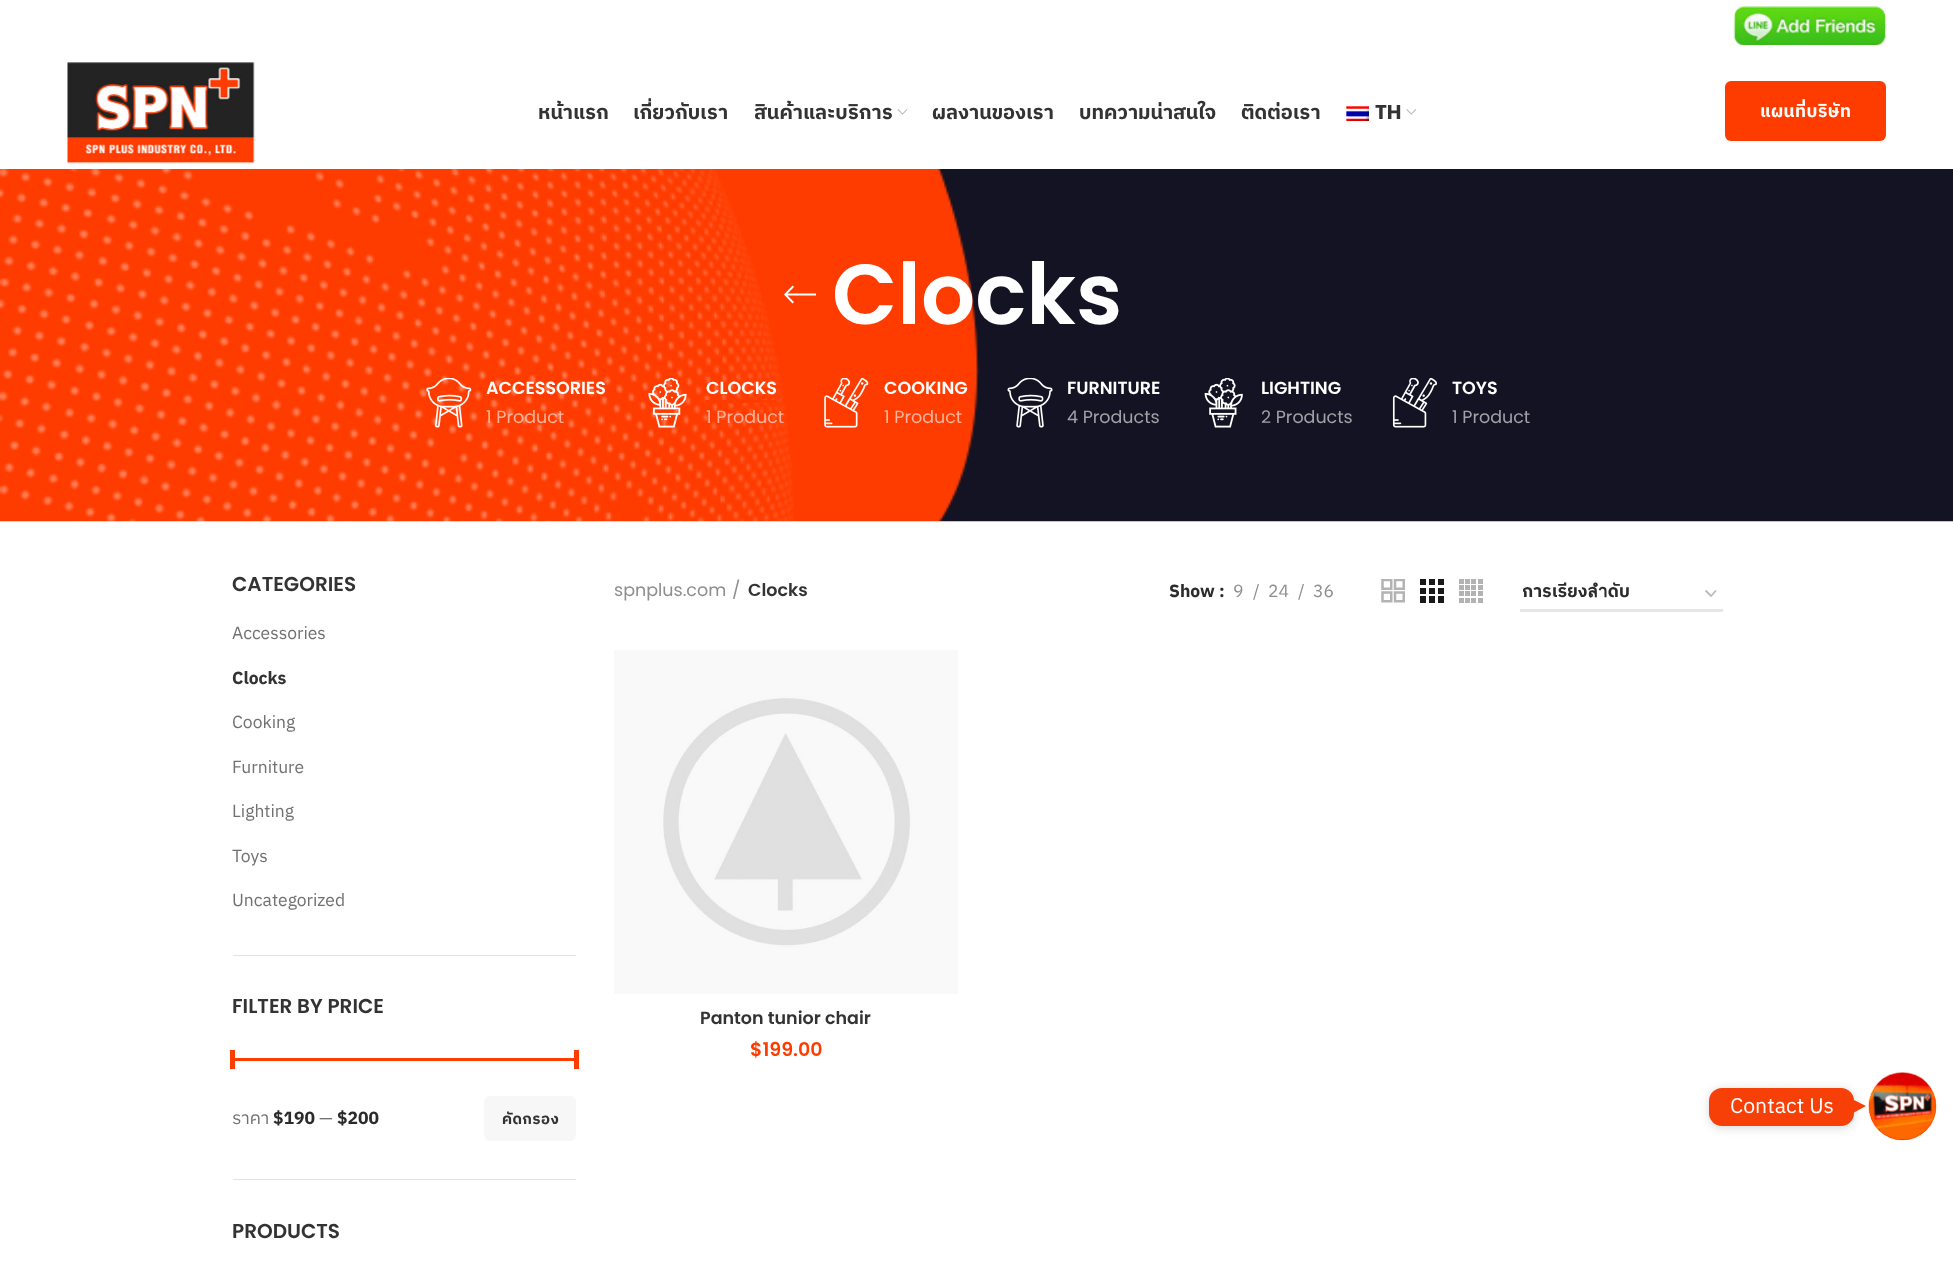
<svg xmlns="http://www.w3.org/2000/svg" width="1953" height="1269" viewBox="0 0 1953 1269">
  <defs>
    <clipPath id="clip1"><rect x="1523" y="580" width="175" height="23"/></clipPath>
  </defs>
  <rect width="100%" height="100%" fill="rgb(255,255,255)"/>
  <image x="1733" y="6" width="154" height="39" href="pic1.png"/>
  <image x="67" y="62" width="188" height="102" href="pic2.png"/>
  <g font-family="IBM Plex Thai" font-size="20" font-weight="bold" fill="rgb(51,51,51)">
    <text x="538" y="119">หน้าแรก</text>
    <text x="633" y="119">เกี่ยวกับเรา</text>
    <text x="754" y="119">สินค้าและบริการ</text>
  </g>
  <image x="897" y="109" width="11" height="6" href="pic3.png"/>
  <g font-family="IBM Plex Thai" font-size="20" font-weight="bold" fill="rgb(51,51,51)">
    <text x="932" y="119">ผลงานของเรา</text>
    <text x="1079" y="119">บทความน่าสนใจ</text>
    <text x="1241" y="119">ติดต่อเรา</text>
  </g>
  <image x="1346" y="106" width="23" height="15" href="pic4.png"/>
  <text x="1375" y="119" font-family="Poppins" font-size="20" font-weight="bold" fill="rgb(51,51,51)">TH</text>
  <image x="1406" y="109" width="11" height="6" href="pic5.png"/>
  <rect x="1725" y="81" width="161" height="60" rx="6" fill="rgb(255,60,0)"/>
  <text x="1760" y="117" font-family="IBM Plex Thai" font-size="17.5" font-weight="bold" letter-spacing="0.4" fill="rgb(255,255,255)">แผนที่บริษัท</text>
  <image x="0" y="169" width="1953" height="353" href="pic6.png"/>
  <path d="M816 293.5V295.5H787.5L794 302L792.5 303.5L784 294.5L792.5 285.5L794 287L787.5 293.5Z" fill="rgb(255,255,255)"/>
  <text x="832" y="324" font-family="Poppins" font-size="85" font-weight="600" fill="rgb(255,255,255)">Clocks</text>
  <image x="426" y="378" width="46" height="50" href="pic7.png"/>
  <text x="486" y="394" font-family="Poppins" font-size="17.5" font-weight="600" fill="rgb(255,255,255)">ACCESSORIES</text>
  <text x="486" y="423" font-family="Poppins" font-size="17.5" fill="rgb(255,179,156)">1 Product</text>
  <image x="648" y="378" width="39" height="50" href="pic8.png"/>
  <text x="706" y="394" font-family="Poppins" font-size="17.5" font-weight="600" fill="rgb(255,255,255)">CLOCKS</text>
  <rect x="705" y="400" width="71" height="3" fill="rgb(255,60,0)"/>
  <text x="706" y="423" font-family="Poppins" font-size="17.5" fill="rgb(255,179,156)">1 Product</text>
  <image x="824" y="378" width="45" height="50" href="pic9.png"/>
  <text x="884" y="394" font-family="Poppins" font-size="17.5" font-weight="600" fill="rgb(255,255,255)">COOKING</text>
  <text x="884" y="423" font-family="Poppins" font-size="17.5" fill="rgb(255,179,156)">1 Product</text>
  <image x="1007" y="378" width="46" height="50" href="pic10.png"/>
  <text x="1067" y="394" font-family="Poppins" font-size="17.5" font-weight="600" fill="rgb(255,255,255)">FURNITURE</text>
  <text x="1067" y="423" font-family="Poppins" font-size="17.5" fill="rgb(161,161,167)">4 Products</text>
  <image x="1204" y="378" width="39" height="50" href="pic11.png"/>
  <text x="1261" y="394" font-family="Poppins" font-size="17.5" font-weight="600" fill="rgb(255,255,255)">LIGHTING</text>
  <text x="1261" y="423" font-family="Poppins" font-size="17.5" fill="rgb(161,161,167)">2 Products</text>
  <image x="1392" y="378" width="45" height="50" href="pic12.png"/>
  <text x="1452" y="394" font-family="Poppins" font-size="17.5" font-weight="600" fill="rgb(255,255,255)">TOYS</text>
  <text x="1452" y="423" font-family="Poppins" font-size="17.5" fill="rgb(161,161,167)">1 Product</text>
  <rect x="233" y="955" width="343" height="1" fill="rgb(228,228,228)"/>
  <text x="232" y="591" font-family="Poppins" font-size="20" font-weight="600" fill="rgb(51,51,51)">CATEGORIES</text>
  <text x="232" y="639" font-family="IBM Plex Thai" font-size="17.5" fill="rgb(113,113,113)">Accessories</text>
  <text x="232" y="684" font-family="IBM Plex Thai" font-size="17.5" font-weight="bold" fill="rgb(51,51,51)">Clocks</text>
  <g font-family="IBM Plex Thai" font-size="17.5" fill="rgb(113,113,113)">
    <text x="232" y="728">Cooking</text>
    <text x="232" y="773">Furniture</text>
    <text x="232" y="817">Lighting</text>
    <text x="232" y="862">Toys</text>
    <text x="232" y="906">Uncategorized</text>
  </g>
  <rect x="233" y="1179" width="343" height="1" fill="rgb(228,228,228)"/>
  <text x="232" y="1013" font-family="Poppins" font-size="20" font-weight="600" fill="rgb(51,51,51)">FILTER BY PRICE</text>
  <rect x="233" y="1058" width="343" height="3" fill="rgb(255,60,0)"/>
  <rect x="230" y="1050" width="5" height="19" fill="rgb(255,60,0)"/>
  <rect x="574" y="1050" width="5" height="19" fill="rgb(255,60,0)"/>
  <text x="232" y="1124" font-family="IBM Plex Thai" font-size="17.5" fill="rgb(113,113,113)">ราคา</text>
  <text x="273" y="1124" font-family="IBM Plex Thai" font-size="17.5" font-weight="bold" fill="rgb(45,42,42)">$190</text>
  <text x="319" y="1124" font-family="IBM Plex Thai" font-size="17.5" fill="rgb(113,113,113)">—</text>
  <text x="337" y="1124" font-family="IBM Plex Thai" font-size="17.5" font-weight="bold" fill="rgb(45,42,42)">$200</text>
  <rect x="484" y="1096" width="92" height="45" rx="6" fill="rgb(247,247,247)"/>
  <text x="502" y="1124" font-family="IBM Plex Thai" font-size="15" font-weight="bold" letter-spacing="0.4" fill="rgb(51,51,51)">คัดกรอง</text>
  <text x="232" y="1238" font-family="Poppins" font-size="20" font-weight="600" fill="rgb(51,51,51)">PRODUCTS</text>
  <g font-family="Poppins" font-size="17.5" fill="rgb(142,142,142)">
    <text x="614" y="596">spnplus.com</text>
    <text x="732" y="596">/</text>
  </g>
  <text x="748" y="596" font-family="Poppins" font-size="17.5" font-weight="600" fill="rgb(51,51,51)">Clocks</text>
  <text x="1169" y="597" font-family="IBM Plex Thai" font-size="17.5" font-weight="bold" fill="rgb(45,42,42)">Show :</text>
  <g font-family="IBM Plex Thai" font-size="17.5" fill="rgb(142,142,142)">
    <text x="1233" y="597">9</text>
    <text x="1253" y="597">/</text>
    <text x="1268" y="597">24</text>
    <text x="1298" y="597">/</text>
    <text x="1313" y="597">36</text>
  </g>
  <image x="1381" y="579" width="24" height="24" href="pic13.png"/>
  <image x="1420" y="579" width="24" height="24" href="pic14.png"/>
  <image x="1459" y="579" width="24" height="24" href="pic15.png"/>
  <path d="M1705.5 590.5L1711 596L1716 590.5" fill="none" stroke="rgb(187,187,187)" stroke-width="1.8"/>
  <rect x="1520" y="609" width="203" height="3" fill="rgb(230,230,230)"/>
  <g clip-path="url(#clip1)">
    <text x="1522" y="597" font-family="IBM Plex Thai" font-size="17.5" font-weight="bold" fill="rgb(45,42,42)">การเรียงลำดับ</text>
  </g>
  <image x="614" y="650" width="344" height="344" href="pic16.png"/>
  <text x="700" y="1024" font-family="Poppins" font-size="17.5" font-weight="600" fill="rgb(51,51,51)">Panton tunior chair</text>
  <text x="750" y="1056" font-family="Poppins" font-size="19" font-weight="600" fill="rgb(255,60,0)">$199.00</text>
  <circle cx="1902.5" cy="1106.5" r="33.5" fill="rgb(219,0,0)"/>
  <image x="1868" y="1072" width="69" height="69" href="pic17.png"/>
  <rect x="1709" y="1089" width="145" height="39" rx="13" fill="rgba(0,0,0,0.15)" filter="blur(5px)"/>
  <rect x="1709" y="1088" width="145" height="38" rx="13" fill="rgb(246,64,7)"/>
  <text x="1730" y="1113" font-family="IBM Plex Thai" font-size="21.25" fill="rgb(255,255,255)">Contact Us</text>
  <path d="M1854 1112.5V1100L1866 1106Z" fill="rgb(246,64,7)"/>
</svg>
